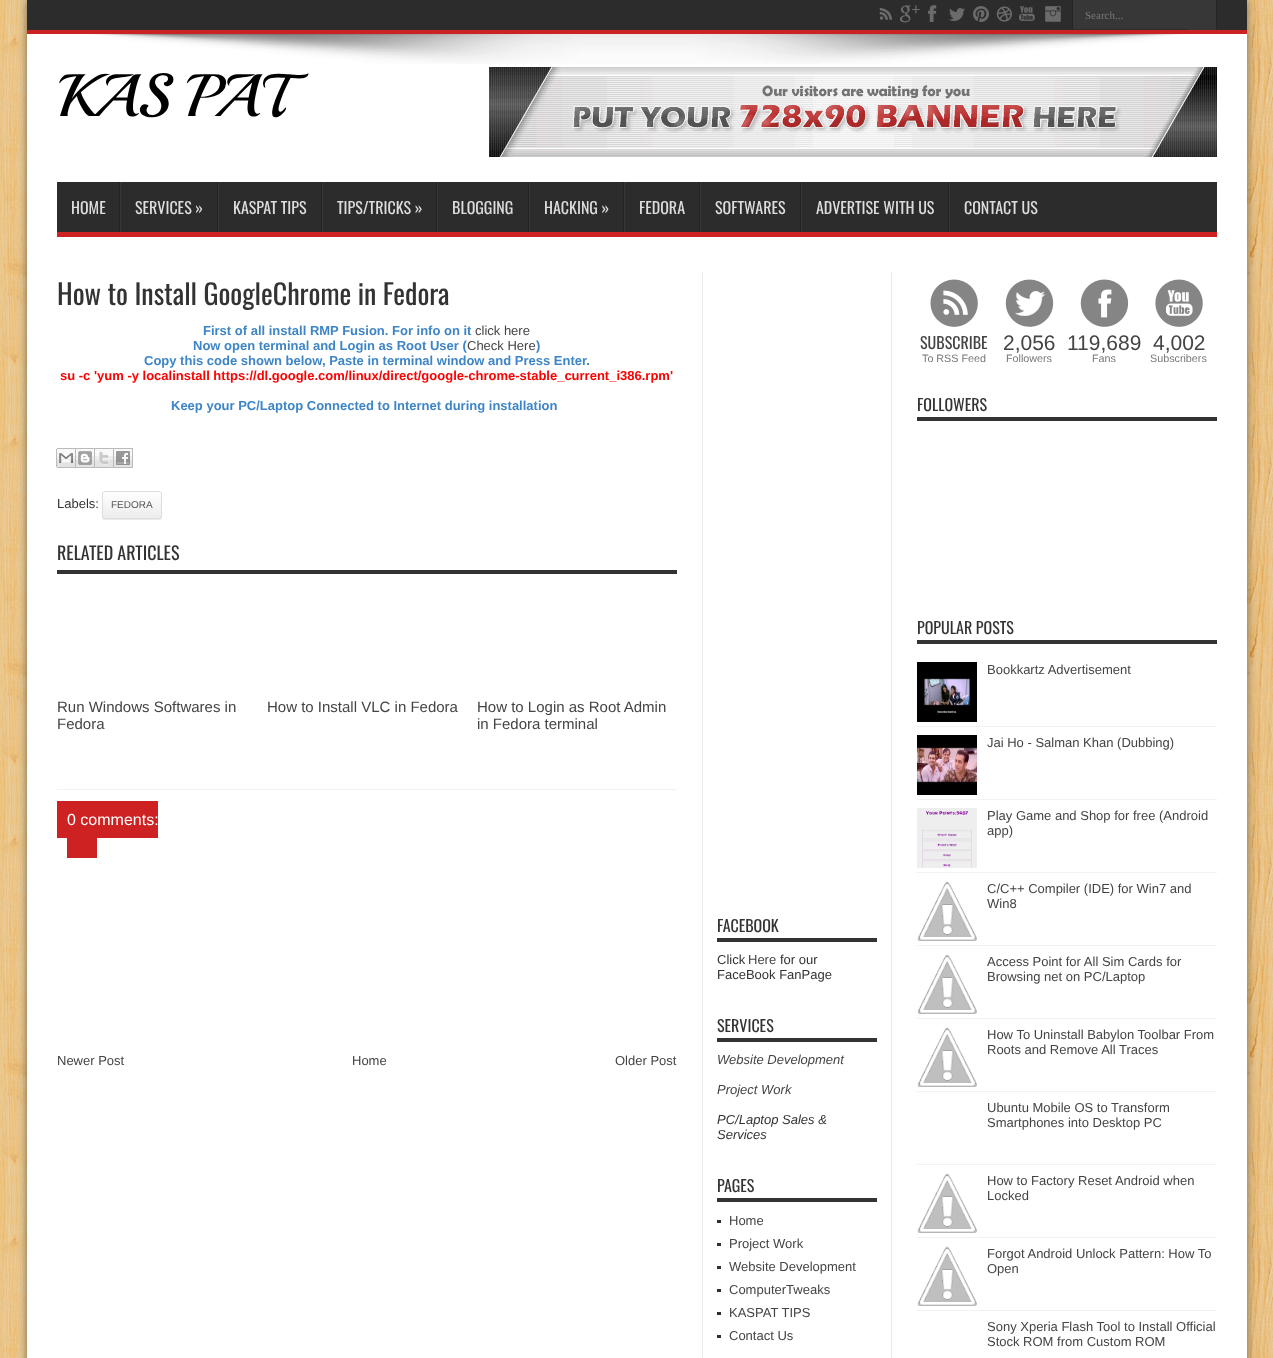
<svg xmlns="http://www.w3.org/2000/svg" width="1273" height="1358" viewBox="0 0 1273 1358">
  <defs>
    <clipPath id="clip1"><rect x="102" y="491" width="60" height="28" rx="3"/></clipPath>
    <linearGradient id="g1" gradientUnits="userSpaceOnUse" x1="132" y1="492" x2="132" y2="518"><stop offset="0" stop-color="rgb(255,255,255)"/><stop offset="0.47" stop-color="rgb(246,246,246)"/><stop offset="1" stop-color="rgb(237,237,237)"/></linearGradient>
  </defs>
  <rect width="100%" height="100%" fill="rgb(255,255,255)"/>
  <image x="0" y="0" width="1273" height="1358" href="pic1.png"/>
  <rect x="27" y="0" width="1220" height="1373" fill="rgba(0,0,0,0.5)" filter="blur(5px)"/>
  <rect x="27" y="34" width="1220" height="1324" fill="rgb(255,255,255)"/>
  <rect x="27" y="0" width="1220" height="30" fill="rgb(44,44,44)"/>
  <rect x="27" y="30" width="1220" height="4" fill="rgb(205,33,34)"/>
  <image x="879" y="8" width="13" height="12" href="pic2.png"/>
  <image x="900" y="5" width="20" height="18" href="pic3.png"/>
  <image x="928" y="5" width="9" height="17" href="pic4.png"/>
  <image x="949" y="8" width="16" height="13" href="pic5.png"/>
  <image x="973" y="6" width="16" height="16" href="pic6.png"/>
  <image x="996" y="6" width="16" height="16" href="pic7.png"/>
  <image x="1019" y="6" width="16" height="15" href="pic8.png"/>
  <image x="1045" y="6" width="16" height="16" href="pic9.png"/>
  <rect x="1073" y="0" width="114" height="29" fill="rgb(55,55,55)"/>
  <rect x="1072" y="0" width="1" height="29" fill="rgb(37,37,37)"/>
  <text x="1085" y="19" font-family="Liberation Serif" font-size="11" fill="rgb(119,119,119)">Search...</text>
  <rect x="1187" y="0" width="29" height="30" fill="rgb(55,55,55)"/>
  <rect x="1216" y="0" width="1" height="30" fill="rgb(37,37,37)"/>
  <image x="89" y="34" width="1096" height="30" href="pic10.png"/>
  <text x="57" y="116" font-family="Playball" font-size="60" fill="rgb(0,0,0)">KAS PAT</text>
  <image x="489" y="67" width="728" height="90" href="pic11.png"/>
  <rect x="57" y="182" width="1160" height="50" fill="rgb(44,44,44)"/>
  <rect x="57" y="232" width="1160" height="5" fill="rgb(205,33,34)"/>
  <text x="71" y="214" font-family="Oswald" font-size="16" fill="rgb(221,221,221)">HOME</text>
  <rect x="119" y="182" width="1" height="50" fill="rgb(34,34,34)"/>
  <rect x="120" y="182" width="1" height="50" fill="rgb(56,56,56)"/>
  <text x="135" y="214" font-family="Oswald" font-size="16" fill="rgb(221,221,221)">SERVICES »</text>
  <rect x="217" y="182" width="1" height="50" fill="rgb(34,34,34)"/>
  <rect x="218" y="182" width="1" height="50" fill="rgb(56,56,56)"/>
  <text x="233" y="214" font-family="Oswald" font-size="16" fill="rgb(221,221,221)">KASPAT TIPS</text>
  <rect x="321" y="182" width="1" height="50" fill="rgb(34,34,34)"/>
  <rect x="322" y="182" width="1" height="50" fill="rgb(56,56,56)"/>
  <text x="337" y="214" font-family="Oswald" font-size="16" fill="rgb(221,221,221)">TIPS/TRICKS »</text>
  <rect x="436" y="182" width="1" height="50" fill="rgb(34,34,34)"/>
  <rect x="437" y="182" width="1" height="50" fill="rgb(56,56,56)"/>
  <text x="452" y="214" font-family="Oswald" font-size="16" fill="rgb(221,221,221)">BLOGGING</text>
  <rect x="528" y="182" width="1" height="50" fill="rgb(34,34,34)"/>
  <rect x="529" y="182" width="1" height="50" fill="rgb(56,56,56)"/>
  <text x="544" y="214" font-family="Oswald" font-size="16" fill="rgb(221,221,221)">HACKING »</text>
  <rect x="623" y="182" width="1" height="50" fill="rgb(34,34,34)"/>
  <rect x="624" y="182" width="1" height="50" fill="rgb(56,56,56)"/>
  <text x="639" y="214" font-family="Oswald" font-size="16" fill="rgb(221,221,221)">FEDORA</text>
  <rect x="699" y="182" width="1" height="50" fill="rgb(34,34,34)"/>
  <rect x="700" y="182" width="1" height="50" fill="rgb(56,56,56)"/>
  <text x="715" y="214" font-family="Oswald" font-size="16" fill="rgb(221,221,221)">SOFTWARES</text>
  <rect x="800" y="182" width="1" height="50" fill="rgb(34,34,34)"/>
  <rect x="801" y="182" width="1" height="50" fill="rgb(56,56,56)"/>
  <text x="816" y="214" font-family="Oswald" font-size="16" fill="rgb(221,221,221)">ADVERTISE WITH US</text>
  <rect x="948" y="182" width="1" height="50" fill="rgb(34,34,34)"/>
  <rect x="949" y="182" width="1" height="50" fill="rgb(56,56,56)"/>
  <text x="964" y="214" font-family="Oswald" font-size="16" fill="rgb(221,221,221)">CONTACT US</text>
  <rect x="57" y="789" width="620" height="1" fill="rgb(242,242,242)"/>
  <text x="57" y="305" font-family="Oswald" font-size="28" fill="rgb(51,51,51)">How to Install GoogleChrome in Fedora</text>
  <text x="203" y="335" font-family="Liberation Sans" font-size="13" font-weight="bold" fill="rgb(61,133,198)">First of all install RMP Fusion. For info on it</text>
  <text x="475" y="335" font-family="Liberation Sans" font-size="13" fill="rgb(68,68,68)">click here</text>
  <text x="193" y="350" font-family="Liberation Sans" font-size="13" font-weight="bold" fill="rgb(61,133,198)">Now open terminal and Login as Root User (</text>
  <text x="467" y="350" font-family="Liberation Sans" font-size="13" fill="rgb(68,68,68)">Check Here</text>
  <g font-family="Liberation Sans" font-size="13" font-weight="bold" fill="rgb(61,133,198)">
    <text x="536" y="350">)</text>
    <text x="144" y="365">Copy this code shown below, Paste in terminal window and Press Enter.</text>
  </g>
  <text x="60" y="380" font-family="Liberation Sans" font-size="13" font-weight="bold" fill="rgb(255,0,0)">su -c 'yum -y localinstall https://dl.google.com/linux/direct/google-chrome-stable_current_i386.rpm'</text>
  <text x="171" y="410" font-family="Liberation Sans" font-size="13" font-weight="bold" fill="rgb(61,133,198)">Keep your PC/Laptop Connected to Internet during installation</text>
  <image x="56" y="448" width="20" height="20" href="pic12.png"/>
  <image x="76" y="448" width="19" height="20" href="pic13.png"/>
  <image x="95" y="448" width="19" height="20" href="pic14.png"/>
  <image x="114" y="448" width="19" height="20" href="pic15.png"/>
  <text x="57" y="508" font-family="Liberation Sans" font-size="13" fill="rgb(51,51,51)">Labels:</text>
  <rect x="102" y="492" width="60" height="28" rx="3" fill="rgb(234,234,234)" filter="blur(0.5px)"/>
  <g clip-path="url(#clip1)">
    <rect x="102" y="492" width="60" height="26" fill="url(#g1)"/>
  </g>
  <path d="M105 493H159C160 493 161 494 161 495C161 490 154 492 150 492H114C110 492 103 490 103 495C103 494 104 493 105 493Z" fill="rgb(251,251,251)"/>
  <rect x="102.5" y="491.5" width="59" height="27" rx="2.5" fill="none" stroke="rgb(222,222,222)"/>
  <text x="111" y="508" font-family="Liberation Sans" font-size="10" fill="rgb(85,85,85)">FEDORA</text>
  <rect x="57" y="570" width="620" height="4" fill="rgb(51,51,51)"/>
  <text x="57" y="560" font-family="Oswald" font-size="18" fill="rgb(51,51,51)">RELATED ARTICLES</text>
  <g font-family="Liberation Sans" font-size="15" fill="rgb(68,68,68)">
    <text>
      <tspan x="57" y="712">Run Windows Softwares in</tspan>
      <tspan x="57" y="729">Fedora</tspan>
    </text>
    <text x="267" y="712">How to Install VLC in Fedora</text>
    <text>
      <tspan x="477" y="712">How to Login as Root Admin</tspan>
      <tspan x="477" y="729">in Fedora terminal</tspan>
    </text>
  </g>
  <rect x="57" y="801" width="101" height="37" fill="rgb(205,33,34)"/>
  <text x="67" y="825" font-family="Liberation Sans" font-size="16" fill="rgb(255,255,255)">0 comments:</text>
  <rect x="67" y="838" width="30" height="20" fill="rgb(205,33,34)"/>
  <g font-family="Liberation Sans" font-size="13" fill="rgb(68,68,68)">
    <text x="57" y="1065">Newer Post</text>
    <text x="352" y="1065">Home</text>
    <text x="615" y="1065">Older Post</text>
  </g>
  <rect x="891" y="272" width="1" height="1086" fill="rgb(234,234,234)"/>
  <rect x="702" y="272" width="1" height="1086" fill="rgb(234,234,234)"/>
  <rect x="717" y="938" width="160" height="4" fill="rgb(51,51,51)"/>
  <text x="717" y="932" font-family="Oswald" font-size="16" fill="rgb(51,51,51)">FACEBOOK</text>
  <text x="717" y="964" font-family="Liberation Sans" font-size="13" fill="rgb(51,51,51)">Click</text>
  <text x="748" y="964" font-family="Liberation Sans" font-size="13" fill="rgb(68,68,68)">Here</text>
  <g font-family="Liberation Sans" font-size="13" fill="rgb(51,51,51)">
    <text x="780" y="964">for our</text>
    <text x="717" y="979">FaceBook FanPage</text>
  </g>
  <rect x="717" y="1038" width="160" height="4" fill="rgb(51,51,51)"/>
  <text x="717" y="1032" font-family="Oswald" font-size="16" fill="rgb(51,51,51)">SERVICES</text>
  <g font-family="Liberation Sans" font-size="13" font-style="italic" fill="rgb(68,68,68)">
    <text x="717" y="1064">Website Development</text>
    <text x="717" y="1094">Project Work</text>
  </g>
  <g font-family="Liberation Sans" font-size="13" font-style="italic" fill="rgb(51,51,51)">
    <text>
      <tspan x="717" y="1124">PC/Laptop Sales &amp;</tspan>
      <tspan x="717" y="1139">Services</tspan>
    </text>
  </g>
  <rect x="717" y="1198" width="160" height="4" fill="rgb(51,51,51)"/>
  <text x="717" y="1192" font-family="Oswald" font-size="16" fill="rgb(51,51,51)">PAGES</text>
  <rect x="717" y="1220" width="4" height="3" fill="rgb(41,49,56)"/>
  <text x="729" y="1225" font-family="Liberation Sans" font-size="13" fill="rgb(68,68,68)">Home</text>
  <rect x="717" y="1243" width="4" height="3" fill="rgb(41,49,56)"/>
  <text x="729" y="1248" font-family="Liberation Sans" font-size="13" fill="rgb(68,68,68)">Project Work</text>
  <rect x="717" y="1266" width="4" height="3" fill="rgb(41,49,56)"/>
  <text x="729" y="1271" font-family="Liberation Sans" font-size="13" fill="rgb(68,68,68)">Website Development</text>
  <rect x="717" y="1289" width="4" height="3" fill="rgb(41,49,56)"/>
  <text x="729" y="1294" font-family="Liberation Sans" font-size="13" fill="rgb(68,68,68)">ComputerTweaks</text>
  <rect x="717" y="1312" width="4" height="3" fill="rgb(41,49,56)"/>
  <text x="729" y="1317" font-family="Liberation Sans" font-size="13" fill="rgb(68,68,68)">KASPAT TIPS</text>
  <rect x="717" y="1335" width="4" height="3" fill="rgb(41,49,56)"/>
  <text x="729" y="1340" font-family="Liberation Sans" font-size="13" fill="rgb(68,68,68)">Contact Us</text>
  <image x="930" y="279" width="48" height="48" href="pic16.png"/>
  <text x="920" y="349" font-family="Oswald" font-size="16" fill="rgb(68,68,68)">SUBSCRIBE</text>
  <text x="922" y="362" font-family="Liberation Sans" font-size="10.75" fill="rgb(119,119,119)">To RSS Feed</text>
  <image x="1005" y="279" width="49" height="48" href="pic17.png"/>
  <text x="1003" y="350" font-family="Liberation Sans" font-size="21" fill="rgb(68,68,68)">2,056</text>
  <text x="1006" y="362" font-family="Liberation Sans" font-size="10.75" fill="rgb(119,119,119)">Followers</text>
  <image x="1080" y="279" width="49" height="48" href="pic18.png"/>
  <text x="1067" y="350" font-family="Liberation Sans" font-size="21" fill="rgb(68,68,68)">119,689</text>
  <text x="1092" y="362" font-family="Liberation Sans" font-size="10.75" fill="rgb(119,119,119)">Fans</text>
  <image x="1155" y="279" width="48" height="48" href="pic19.png"/>
  <text x="1153" y="350" font-family="Liberation Sans" font-size="21" fill="rgb(68,68,68)">4,002</text>
  <text x="1150" y="362" font-family="Liberation Sans" font-size="10.75" fill="rgb(119,119,119)">Subscribers</text>
  <rect x="917" y="417" width="300" height="4" fill="rgb(51,51,51)"/>
  <text x="917" y="411" font-family="Oswald" font-size="16" fill="rgb(51,51,51)">FOLLOWERS</text>
  <rect x="917" y="640" width="300" height="4" fill="rgb(51,51,51)"/>
  <text x="917" y="634" font-family="Oswald" font-size="16" fill="rgb(51,51,51)">POPULAR POSTS</text>
  <rect x="917" y="726" width="300" height="1" fill="rgb(242,242,242)"/>
  <image x="917" y="662" width="60" height="60" href="pic20.png"/>
  <text x="987" y="674" font-family="Liberation Sans" font-size="13" fill="rgb(68,68,68)">Bookkartz Advertisement</text>
  <rect x="917" y="799" width="300" height="1" fill="rgb(242,242,242)"/>
  <image x="917" y="735" width="60" height="60" href="pic21.png"/>
  <text x="987" y="747" font-family="Liberation Sans" font-size="13" fill="rgb(68,68,68)">Jai Ho - Salman Khan (Dubbing)</text>
  <rect x="917" y="872" width="300" height="1" fill="rgb(242,242,242)"/>
  <image x="917" y="808" width="60" height="60" href="pic22.png"/>
  <g font-family="Liberation Sans" font-size="13" fill="rgb(68,68,68)">
    <text>
      <tspan x="987" y="820">Play Game and Shop for free (Android</tspan>
      <tspan x="987" y="835">app)</tspan>
    </text>
  </g>
  <rect x="917" y="945" width="300" height="1" fill="rgb(242,242,242)"/>
  <image x="917" y="881" width="60" height="60" href="pic23.png"/>
  <g font-family="Liberation Sans" font-size="13" fill="rgb(68,68,68)">
    <text>
      <tspan x="987" y="893">C/C++ Compiler (IDE) for Win7 and</tspan>
      <tspan x="987" y="908">Win8</tspan>
    </text>
  </g>
  <rect x="917" y="1018" width="300" height="1" fill="rgb(242,242,242)"/>
  <image x="917" y="954" width="60" height="60" href="pic23.png"/>
  <g font-family="Liberation Sans" font-size="13" fill="rgb(68,68,68)">
    <text>
      <tspan x="987" y="966">Access Point for All Sim Cards for</tspan>
      <tspan x="987" y="981">Browsing net on PC/Laptop</tspan>
    </text>
  </g>
  <rect x="917" y="1091" width="300" height="1" fill="rgb(242,242,242)"/>
  <image x="917" y="1027" width="60" height="60" href="pic23.png"/>
  <g font-family="Liberation Sans" font-size="13" fill="rgb(68,68,68)">
    <text>
      <tspan x="987" y="1039">How To Uninstall Babylon Toolbar From</tspan>
      <tspan x="987" y="1054">Roots and Remove All Traces</tspan>
    </text>
  </g>
  <rect x="917" y="1164" width="300" height="1" fill="rgb(242,242,242)"/>
  <g font-family="Liberation Sans" font-size="13" fill="rgb(68,68,68)">
    <text>
      <tspan x="987" y="1112">Ubuntu Mobile OS to Transform</tspan>
      <tspan x="987" y="1127">Smartphones into Desktop PC</tspan>
    </text>
  </g>
  <rect x="917" y="1237" width="300" height="1" fill="rgb(242,242,242)"/>
  <image x="917" y="1173" width="60" height="60" href="pic23.png"/>
  <g font-family="Liberation Sans" font-size="13" fill="rgb(68,68,68)">
    <text>
      <tspan x="987" y="1185">How to Factory Reset Android when</tspan>
      <tspan x="987" y="1200">Locked</tspan>
    </text>
  </g>
  <rect x="917" y="1310" width="300" height="1" fill="rgb(242,242,242)"/>
  <image x="917" y="1246" width="60" height="60" href="pic23.png"/>
  <g font-family="Liberation Sans" font-size="13" fill="rgb(68,68,68)">
    <text>
      <tspan x="987" y="1258">Forgot Android Unlock Pattern: How To</tspan>
      <tspan x="987" y="1273">Open</tspan>
    </text>
    <text>
      <tspan x="987" y="1331">Sony Xperia Flash Tool to Install Official</tspan>
      <tspan x="987" y="1346">Stock ROM from Custom ROM</tspan>
    </text>
  </g>
</svg>
